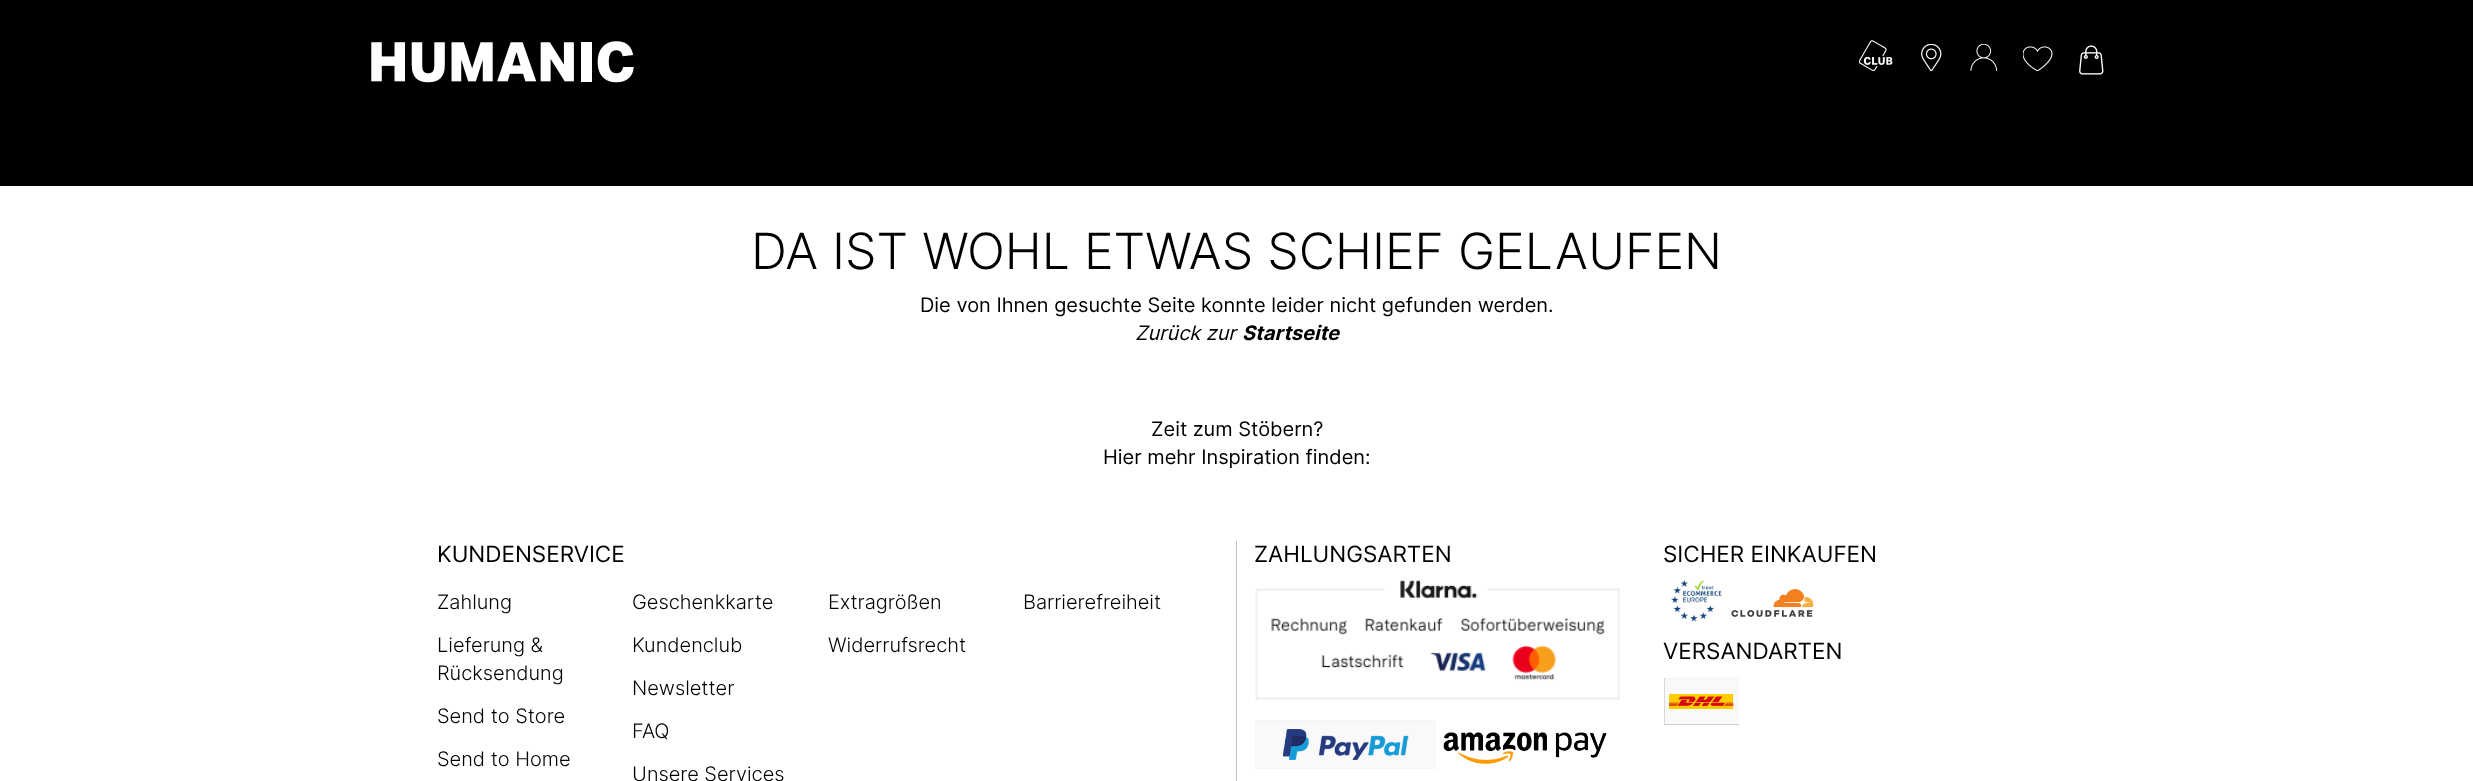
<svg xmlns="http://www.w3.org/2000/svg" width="2473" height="781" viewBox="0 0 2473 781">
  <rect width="100%" height="100%" fill="rgb(255,255,255)"/>
  <rect x="0" y="0" width="2473" height="186" fill="rgb(0,0,0)"/>
  <image x="371" y="41" width="263" height="42" href="pic1.png"/>
  <image x="1859" y="40" width="34" height="31" href="pic2.png"/>
  <image x="1921" y="44" width="21" height="27" href="pic3.png"/>
  <image x="1970" y="44" width="28" height="27" href="pic4.png"/>
  <image x="2023" y="46" width="30" height="26" href="pic5.png"/>
  <image x="2079" y="45" width="25" height="30" href="pic6.png"/>
  <text x="751" y="269" font-family="Inter" font-size="50" font-weight="300" fill="rgb(0,0,0)">DA IST WOHL ETWAS SCHIEF GELAUFEN</text>
  <text x="920" y="312" font-family="Inter" font-size="20" fill="rgb(0,0,0)">Die von Ihnen gesuchte Seite konnte leider nicht gefunden werden.</text>
  <text x="1135" y="340" font-family="Inter" font-size="20" font-style="italic" fill="rgb(0,0,0)">Zurück zur</text>
  <text x="1242" y="340" font-family="Inter" font-size="20" font-weight="bold" font-style="italic" fill="rgb(0,0,0)">Startseite</text>
  <g font-family="Inter" font-size="20" fill="rgb(0,0,0)">
    <text x="1151" y="436">Zeit zum Stöbern?</text>
    <text x="1103" y="464">Hier mehr Inspiration finden:</text>
  </g>
  <rect x="1236" y="541" width="1" height="240" fill="rgb(195,195,195)"/>
  <text x="437" y="562" font-family="Inter" font-size="22.5" fill="rgb(0,0,0)">KUNDENSERVICE</text>
  <g font-family="Inter" font-size="20" font-weight="300" fill="rgb(0,0,0)">
    <text x="437" y="609">Zahlung</text>
    <text>
      <tspan x="437" y="652">Lieferung &amp;</tspan>
      <tspan x="437" y="680">Rücksendung</tspan>
    </text>
    <text x="437" y="723">Send to Store</text>
    <text x="437" y="766">Send to Home</text>
    <text x="632" y="609">Geschenkkarte</text>
    <text x="632" y="652">Kundenclub</text>
    <text x="632" y="695">Newsletter</text>
    <text x="632" y="738">FAQ</text>
    <text x="632" y="781">Unsere Services</text>
    <text x="828" y="609">Extragrößen</text>
    <text x="828" y="652">Widerrufsrecht</text>
    <text x="1023" y="609">Barrierefreiheit</text>
  </g>
  <text x="1254" y="562" font-family="Inter" font-size="22.5" fill="rgb(0,0,0)">ZAHLUNGSARTEN</text>
  <image x="1255" y="580" width="365" height="120" href="pic7.png"/>
  <image x="1255" y="720" width="181" height="49" href="pic8.png"/>
  <image x="1443" y="732" width="164" height="32" href="pic9.png"/>
  <text x="1663" y="562" font-family="Inter" font-size="22.5" fill="rgb(0,0,0)">SICHER EINKAUFEN</text>
  <image x="1671" y="580" width="51" height="42" href="pic10.png"/>
  <image x="1731" y="589" width="83" height="28" href="pic11.png"/>
  <text x="1663" y="659" font-family="Inter" font-size="22.5" fill="rgb(0,0,0)">VERSANDARTEN</text>
  <image x="1664" y="678" width="75" height="47" href="pic12.png"/>
</svg>
